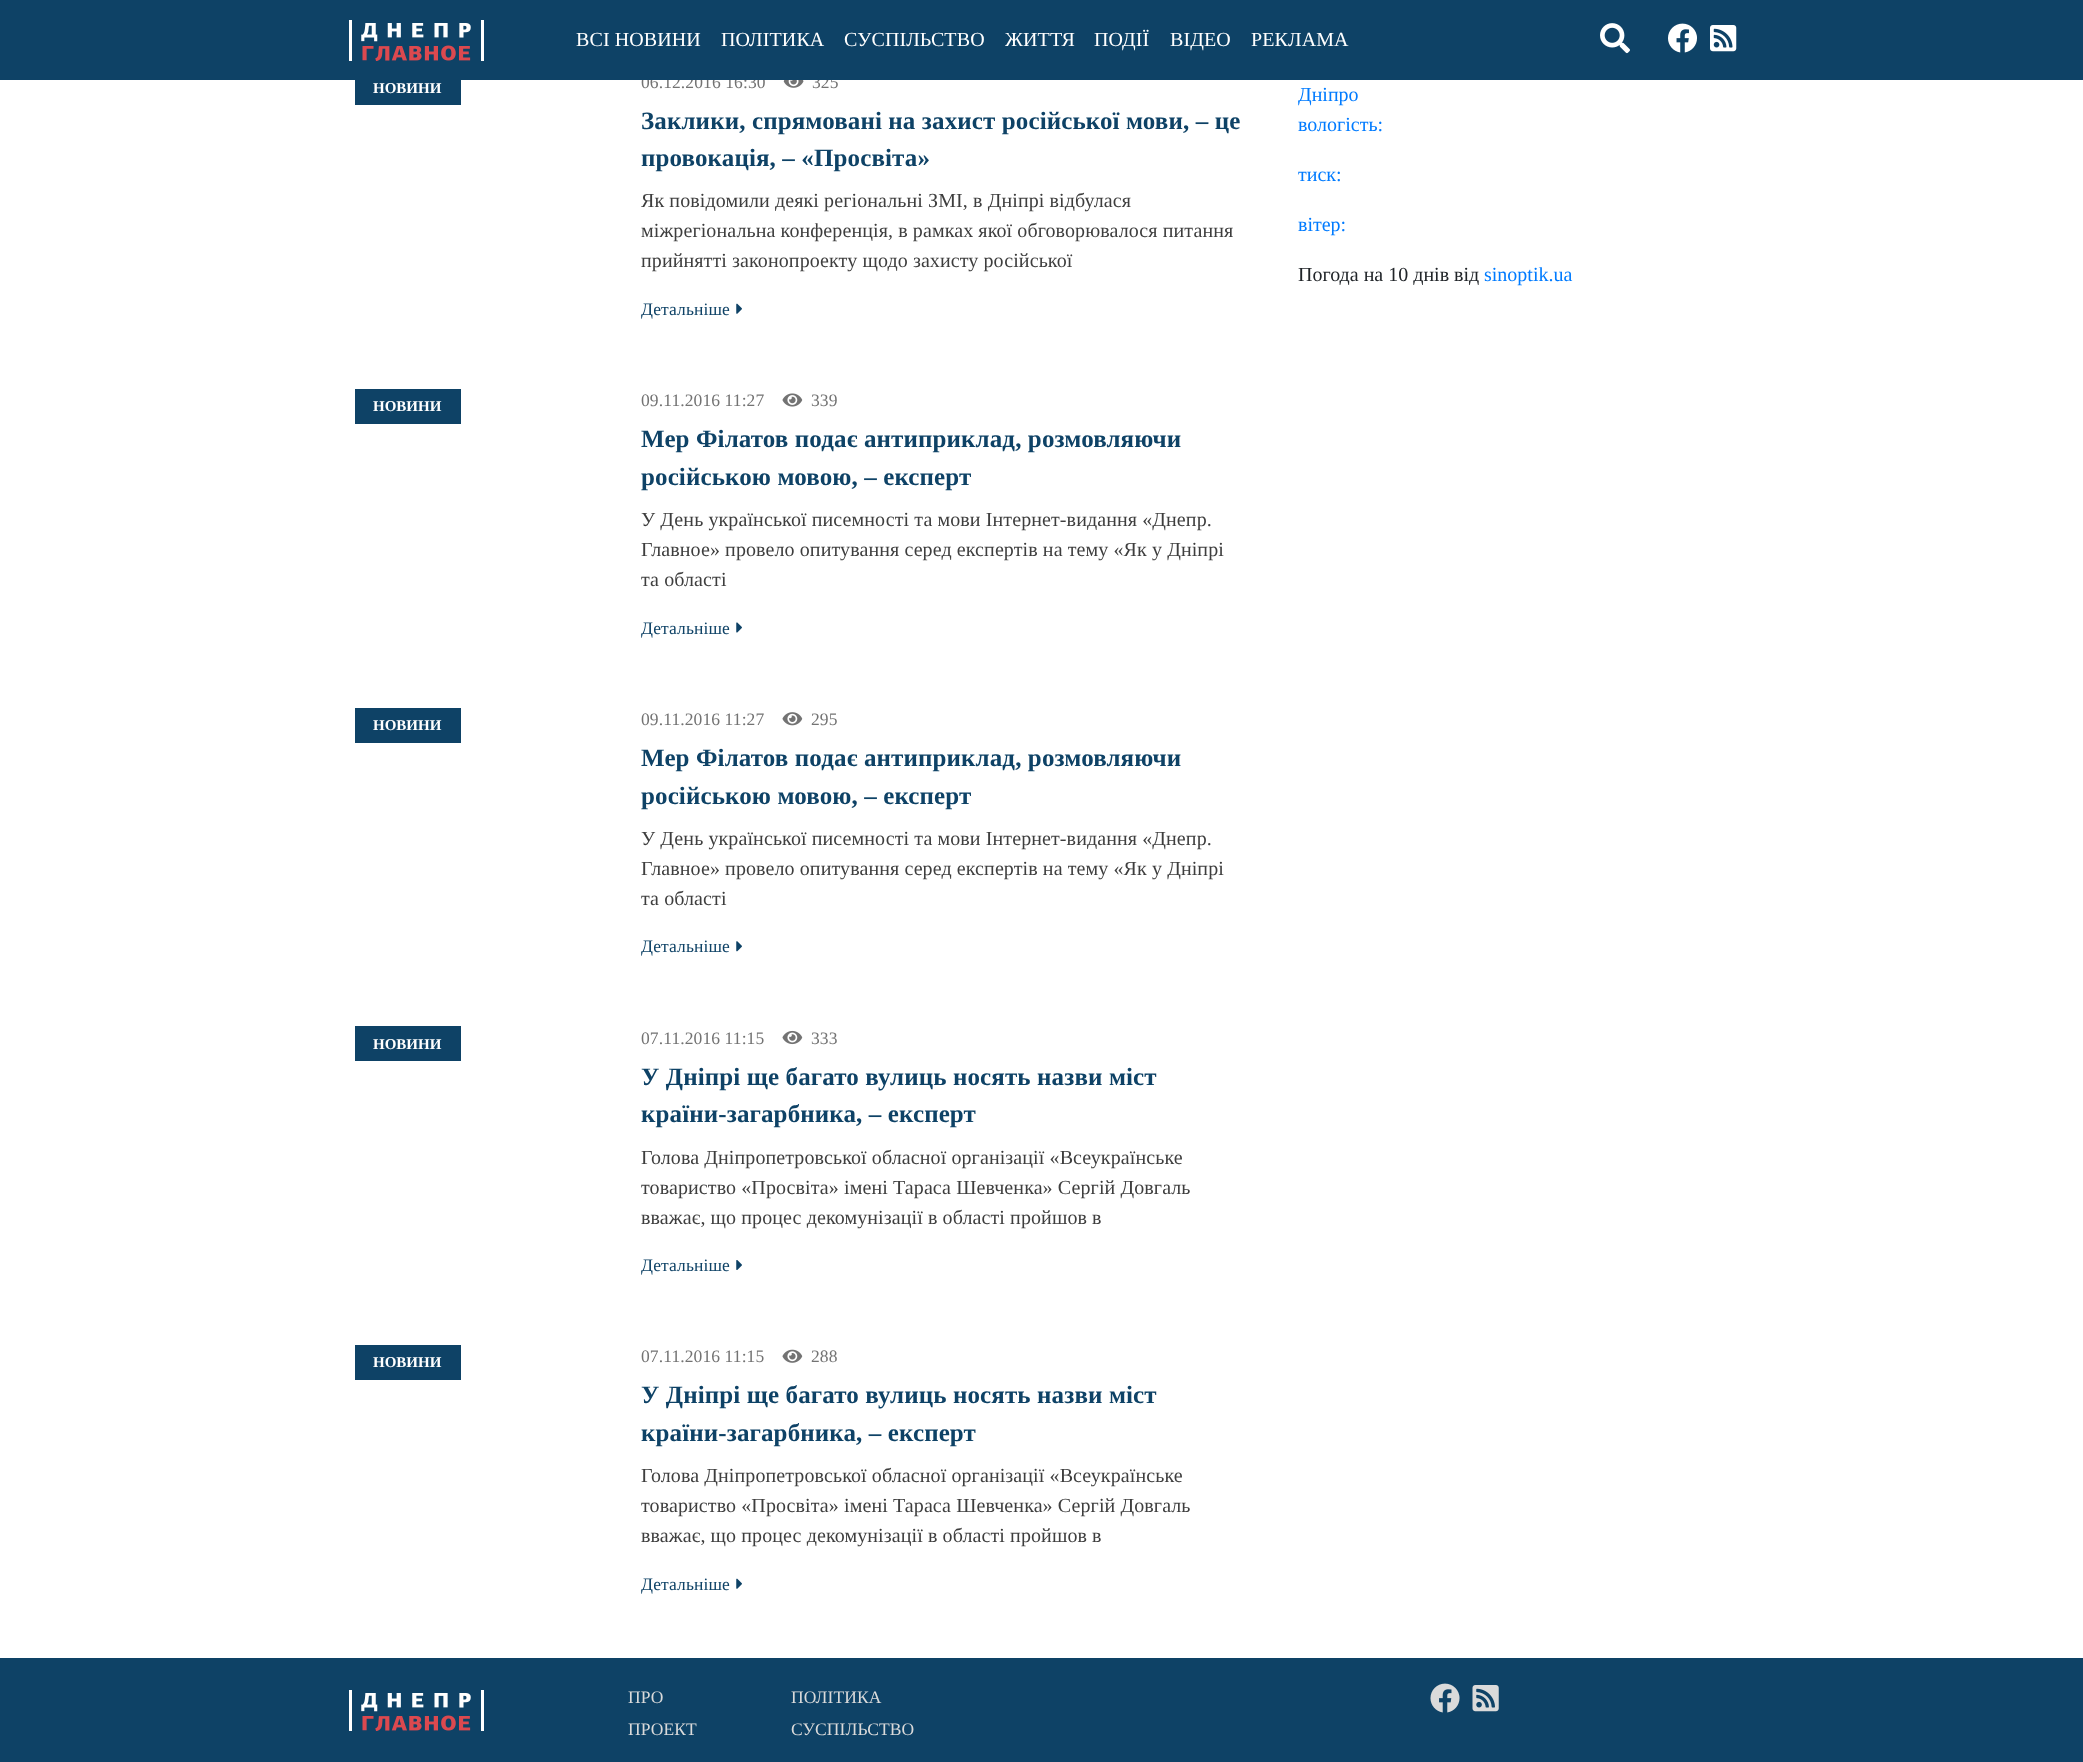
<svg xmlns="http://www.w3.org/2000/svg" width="2083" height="1762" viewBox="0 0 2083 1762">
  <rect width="100%" height="100%" fill="rgb(255,255,255)"/>
  <g font-family="Liberation Serif" font-size="17.5" letter-spacing="0.1" fill="rgb(115,115,115)">
    <text x="641" y="88">06.12.2016 16:30</text>
    <text x="812" y="88">325</text>
  </g>
  <rect x="0" y="0" width="2083" height="80" fill="rgb(14,66,102)"/>
  <image x="349" y="20" width="135" height="41" href="pic1.png"/>
  <g font-family="Liberation Serif" font-size="20" letter-spacing="0.1" fill="rgb(255,255,255)">
    <text x="576" y="46">ВСІ НОВИНИ</text>
    <text x="721" y="46">ПОЛІТИКА</text>
    <text x="844" y="46">СУСПІЛЬСТВО</text>
    <text x="1005" y="46">ЖИТТЯ</text>
    <text x="1094" y="46">ПОДІЇ</text>
    <text x="1170" y="46">ВІДЕО</text>
    <text x="1251" y="46">РЕКЛАМА</text>
  </g>
  <image x="1600" y="23" width="30" height="31" href="pic2.png"/>
  <image x="1668" y="23" width="29" height="30" href="pic3.png"/>
  <image x="1710" y="25" width="27" height="27" href="pic4.png"/>
  <rect x="355" y="80" width="106" height="25" fill="rgb(14,66,102)"/>
  <text x="373" y="93" font-family="Liberation Serif" font-size="15" font-weight="bold" fill="rgb(255,255,255)">НОВИНИ</text>
  <image x="783" y="80" width="21" height="8" href="pic5.png"/>
  <g font-family="Liberation Serif" font-size="25" font-weight="bold" letter-spacing="0.12" fill="rgb(14,66,102)">
    <text>
      <tspan x="641" y="129">Заклики, спрямовані на захист російської мови, – це</tspan>
      <tspan x="641" y="166">провокація, – «Просвіта»</tspan>
    </text>
  </g>
  <g font-family="Liberation Serif" font-size="20" letter-spacing="0.1" fill="rgb(62,62,62)">
    <text>
      <tspan x="641" y="207">Як повідомили деякі регіональні ЗМІ, в Дніпрі відбулася</tspan>
      <tspan x="641" y="237">міжрегіональна конференція, в рамках якої обговорювалося питання</tspan>
      <tspan x="641" y="267">прийнятті законопроекту щодо захисту російської</tspan>
    </text>
  </g>
  <text x="641" y="315" font-family="Liberation Serif" font-size="17.5" letter-spacing="0.1" fill="rgb(14,66,102)">Детальніше</text>
  <image x="736" y="303" width="6" height="11" href="pic6.png"/>
  <rect x="355" y="389" width="106" height="35" fill="rgb(14,66,102)"/>
  <text x="373" y="411" font-family="Liberation Serif" font-size="15" font-weight="bold" fill="rgb(255,255,255)">НОВИНИ</text>
  <text x="641" y="406" font-family="Liberation Serif" font-size="17.5" letter-spacing="0.1" fill="rgb(115,115,115)">09.11.2016 11:27</text>
  <image x="782" y="393" width="21" height="14" href="pic7.png"/>
  <text x="811" y="406" font-family="Liberation Serif" font-size="17.5" letter-spacing="0.1" fill="rgb(115,115,115)">339</text>
  <g font-family="Liberation Serif" font-size="25" font-weight="bold" letter-spacing="0.12" fill="rgb(14,66,102)">
    <text>
      <tspan x="641" y="447">Мер Філатов подає антиприклад, розмовляючи</tspan>
      <tspan x="641" y="485">російською мовою, – експерт</tspan>
    </text>
  </g>
  <g font-family="Liberation Serif" font-size="20" letter-spacing="0.1" fill="rgb(62,62,62)">
    <text>
      <tspan x="641" y="526">У День української писемності та мови Інтернет-видання «Днепр.</tspan>
      <tspan x="641" y="556">Главное» провело опитування серед експертів на тему «Як у Дніпрі</tspan>
      <tspan x="641" y="586">та області</tspan>
    </text>
  </g>
  <text x="641" y="634" font-family="Liberation Serif" font-size="17.5" letter-spacing="0.1" fill="rgb(14,66,102)">Детальніше</text>
  <image x="736" y="622" width="6" height="11" href="pic8.png"/>
  <rect x="355" y="708" width="106" height="35" fill="rgb(14,66,102)"/>
  <text x="373" y="730" font-family="Liberation Serif" font-size="15" font-weight="bold" fill="rgb(255,255,255)">НОВИНИ</text>
  <text x="641" y="725" font-family="Liberation Serif" font-size="17.5" letter-spacing="0.1" fill="rgb(115,115,115)">09.11.2016 11:27</text>
  <image x="782" y="712" width="21" height="14" href="pic9.png"/>
  <text x="811" y="725" font-family="Liberation Serif" font-size="17.5" letter-spacing="0.1" fill="rgb(115,115,115)">295</text>
  <g font-family="Liberation Serif" font-size="25" font-weight="bold" letter-spacing="0.12" fill="rgb(14,66,102)">
    <text>
      <tspan x="641" y="766">Мер Філатов подає антиприклад, розмовляючи</tspan>
      <tspan x="641" y="804">російською мовою, – експерт</tspan>
    </text>
  </g>
  <g font-family="Liberation Serif" font-size="20" letter-spacing="0.1" fill="rgb(62,62,62)">
    <text>
      <tspan x="641" y="845">У День української писемності та мови Інтернет-видання «Днепр.</tspan>
      <tspan x="641" y="875">Главное» провело опитування серед експертів на тему «Як у Дніпрі</tspan>
      <tspan x="641" y="905">та області</tspan>
    </text>
  </g>
  <text x="641" y="952" font-family="Liberation Serif" font-size="17.5" letter-spacing="0.1" fill="rgb(14,66,102)">Детальніше</text>
  <image x="736" y="941" width="6" height="11" href="pic10.png"/>
  <rect x="355" y="1026" width="106" height="35" fill="rgb(14,66,102)"/>
  <text x="373" y="1049" font-family="Liberation Serif" font-size="15" font-weight="bold" fill="rgb(255,255,255)">НОВИНИ</text>
  <text x="641" y="1044" font-family="Liberation Serif" font-size="17.5" letter-spacing="0.1" fill="rgb(115,115,115)">07.11.2016 11:15</text>
  <image x="782" y="1030" width="21" height="15" href="pic11.png"/>
  <text x="811" y="1044" font-family="Liberation Serif" font-size="17.5" letter-spacing="0.1" fill="rgb(115,115,115)">333</text>
  <g font-family="Liberation Serif" font-size="25" font-weight="bold" letter-spacing="0.12" fill="rgb(14,66,102)">
    <text>
      <tspan x="641" y="1085">У Дніпрі ще багато вулиць носять назви міст</tspan>
      <tspan x="641" y="1122">країни-загарбника, – експерт</tspan>
    </text>
  </g>
  <g font-family="Liberation Serif" font-size="20" letter-spacing="0.1" fill="rgb(62,62,62)">
    <text>
      <tspan x="641" y="1164">Голова Дніпропетровської обласної організації «Всеукраїнське</tspan>
      <tspan x="641" y="1194">товариство «Просвіта» імені Тараса Шевченка» Сергій Довгаль</tspan>
      <tspan x="641" y="1224">вважає, що процес декомунізації в області пройшов в</tspan>
    </text>
  </g>
  <text x="641" y="1271" font-family="Liberation Serif" font-size="17.5" letter-spacing="0.1" fill="rgb(14,66,102)">Детальніше</text>
  <image x="736" y="1260" width="6" height="10" href="pic12.png"/>
  <rect x="355" y="1345" width="106" height="35" fill="rgb(14,66,102)"/>
  <text x="373" y="1367" font-family="Liberation Serif" font-size="15" font-weight="bold" fill="rgb(255,255,255)">НОВИНИ</text>
  <text x="641" y="1362" font-family="Liberation Serif" font-size="17.5" letter-spacing="0.1" fill="rgb(115,115,115)">07.11.2016 11:15</text>
  <image x="782" y="1349" width="21" height="14" href="pic13.png"/>
  <text x="811" y="1362" font-family="Liberation Serif" font-size="17.5" letter-spacing="0.1" fill="rgb(115,115,115)">288</text>
  <g font-family="Liberation Serif" font-size="25" font-weight="bold" letter-spacing="0.12" fill="rgb(14,66,102)">
    <text>
      <tspan x="641" y="1403">У Дніпрі ще багато вулиць носять назви міст</tspan>
      <tspan x="641" y="1441">країни-загарбника, – експерт</tspan>
    </text>
  </g>
  <g font-family="Liberation Serif" font-size="20" letter-spacing="0.1" fill="rgb(62,62,62)">
    <text>
      <tspan x="641" y="1482">Голова Дніпропетровської обласної організації «Всеукраїнське</tspan>
      <tspan x="641" y="1512">товариство «Просвіта» імені Тараса Шевченка» Сергій Довгаль</tspan>
      <tspan x="641" y="1542">вважає, що процес декомунізації в області пройшов в</tspan>
    </text>
  </g>
  <text x="641" y="1590" font-family="Liberation Serif" font-size="17.5" letter-spacing="0.1" fill="rgb(14,66,102)">Детальніше</text>
  <image x="736" y="1578" width="6" height="11" href="pic6.png"/>
  <g font-family="Liberation Serif" font-size="20" fill="rgb(0,123,255)">
    <text>
      <tspan x="1298" y="101">Дніпро</tspan>
      <tspan x="1298" y="131">вологість:</tspan>
    </text>
    <text x="1298" y="181">тиск:</text>
    <text x="1298" y="231">вітер:</text>
  </g>
  <text x="1298" y="281" font-family="Liberation Serif" font-size="20" fill="rgb(33,37,41)">Погода на 10 днів від</text>
  <text x="1484" y="281" font-family="Liberation Serif" font-size="20" fill="rgb(0,123,255)">sinoptik.ua</text>
  <rect x="0" y="1658" width="2083" height="104" fill="rgb(14,66,102)"/>
  <image x="349" y="1690" width="135" height="41" href="pic1.png"/>
  <g font-family="Liberation Serif" font-size="17.5" letter-spacing="0.1" fill="rgb(218,218,218)">
    <text>
      <tspan x="628" y="1703">ПРО</tspan>
      <tspan x="628" y="1735">ПРОЕКТ</tspan>
    </text>
    <text>
      <tspan x="791" y="1703">ПОЛІТИКА</tspan>
      <tspan x="791" y="1735">СУСПІЛЬСТВО</tspan>
    </text>
  </g>
  <image x="1430" y="1683" width="30" height="30" href="pic14.png"/>
  <image x="1472" y="1685" width="27" height="27" href="pic15.png"/>
</svg>
